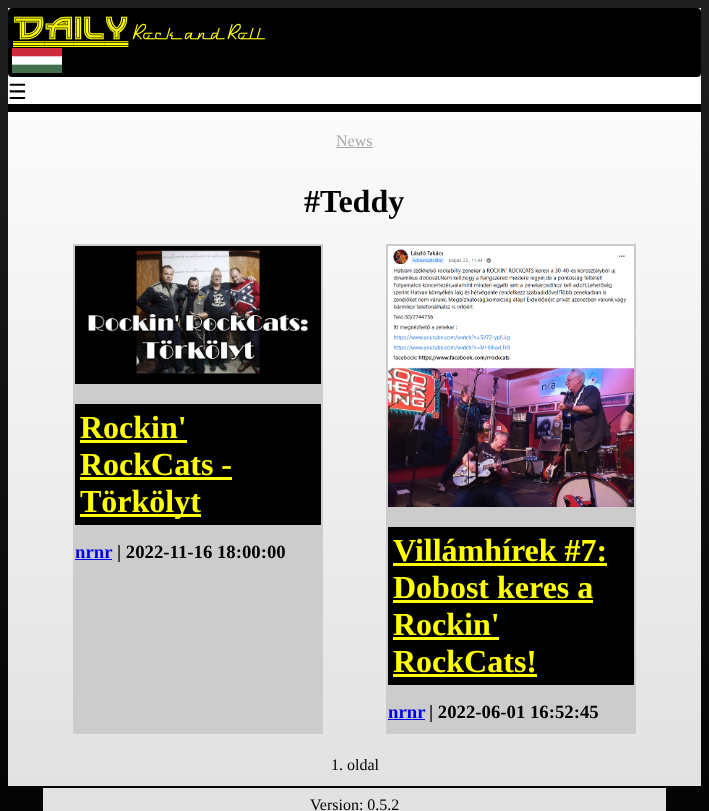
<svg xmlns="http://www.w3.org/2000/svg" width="709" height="811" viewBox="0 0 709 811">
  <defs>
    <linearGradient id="g1" gradientUnits="userSpaceOnUse" x1="354" y1="0" x2="355" y2="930"><stop offset="0" stop-color="rgb(31,31,31)"/><stop offset="1" stop-color="rgb(0,0,0)"/></linearGradient>
    <linearGradient id="g2" gradientUnits="userSpaceOnUse" x1="354" y1="8" x2="355" y2="786"><stop offset="0" stop-color="rgb(255,255,255)"/><stop offset="1" stop-color="rgb(226,226,226)"/></linearGradient>
  </defs>
  <rect width="100%" height="100%" fill="rgb(255,255,255)"/>
  <rect x="0" y="0" width="709" height="811" fill="url(#g1)"/>
  <rect x="8" y="8" width="693" height="778" fill="url(#g2)"/>
  <rect x="8" y="8" width="693" height="69" rx="4" fill="rgb(0,0,0)"/>
  <text x="13" y="41" font-family="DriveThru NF" font-size="32" fill="rgb(255,255,0)">Daily</text>
  <text x="132" y="41" font-family="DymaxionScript" font-size="24" fill="rgb(255,255,0)">Rock and Roll</text>
  <image x="12" y="48" width="50" height="25" href="pic1.png"/>
  <rect x="8" y="104" width="693" height="8" fill="rgb(0,0,0)"/>
  <rect x="8" y="77" width="693" height="27" fill="rgb(255,255,255)"/>
  <text x="8" y="99" font-family="DejaVu Sans" font-size="21" letter-spacing="1" fill="rgb(0,0,0)">☰</text>
  <text x="336" y="146" font-family="Liberation Serif" font-size="16" fill="rgb(169,169,169)">News</text>
  <rect x="336" y="147" width="37" height="1" fill="rgb(169,169,169)"/>
  <text x="304" y="212" font-family="Liberation Serif" font-size="32" font-weight="bold" fill="rgb(0,0,0)">#Teddy</text>
  <rect x="73" y="244" width="250" height="490" fill="rgb(204,204,204)"/>
  <image x="75" y="246" width="246" height="138" href="pic2.png"/>
  <rect x="75" y="404" width="246" height="121" fill="rgb(0,0,0)"/>
  <text x="80" y="438" font-family="Liberation Serif" font-size="32" font-weight="bold" fill="rgb(255,255,0)">Rockin'</text>
  <rect x="80" y="440" width="107" height="3" fill="rgb(255,255,0)"/>
  <text x="80" y="475" font-family="Liberation Serif" font-size="32" font-weight="bold" fill="rgb(255,255,0)">RockCats -</text>
  <rect x="80" y="477" width="152" height="3" fill="rgb(255,255,0)"/>
  <rect x="80" y="514" width="121" height="3" fill="rgb(255,255,0)"/>
  <text x="80" y="512" font-family="Liberation Serif" font-size="32" font-weight="bold" fill="rgb(255,255,0)">Törkölyt</text>
  <text x="75" y="558" font-family="Liberation Serif" font-size="18.75" font-weight="bold" fill="rgb(0,0,238)">nrnr</text>
  <rect x="75" y="559" width="37" height="1" fill="rgb(0,0,238)"/>
  <text x="117" y="558" font-family="Liberation Serif" font-size="18.75" font-weight="bold" fill="rgb(0,0,0)">| 2022-11-16 18:00:00</text>
  <rect x="386" y="244" width="250" height="490" fill="rgb(204,204,204)"/>
  <image x="388" y="246" width="246" height="261" href="pic3.png"/>
  <rect x="388" y="527" width="246" height="158" fill="rgb(0,0,0)"/>
  <text x="393" y="561" font-family="Liberation Serif" font-size="32" font-weight="bold" fill="rgb(255,255,0)">Villámhírek #7:</text>
  <rect x="393" y="563" width="214" height="3" fill="rgb(255,255,0)"/>
  <text x="393" y="598" font-family="Liberation Serif" font-size="32" font-weight="bold" fill="rgb(255,255,0)">Dobost keres a</text>
  <rect x="393" y="600" width="200" height="3" fill="rgb(255,255,0)"/>
  <text x="393" y="635" font-family="Liberation Serif" font-size="32" font-weight="bold" fill="rgb(255,255,0)">Rockin'</text>
  <rect x="393" y="637" width="106" height="3" fill="rgb(255,255,0)"/>
  <text x="393" y="672" font-family="Liberation Serif" font-size="32" font-weight="bold" fill="rgb(255,255,0)">RockCats!</text>
  <rect x="393" y="674" width="144" height="3" fill="rgb(255,255,0)"/>
  <text x="388" y="718" font-family="Liberation Serif" font-size="18.75" font-weight="bold" fill="rgb(0,0,238)">nrnr</text>
  <rect x="388" y="719" width="37" height="1" fill="rgb(0,0,238)"/>
  <text x="429" y="718" font-family="Liberation Serif" font-size="18.75" font-weight="bold" fill="rgb(0,0,0)">| 2022-06-01 16:52:45</text>
  <text x="331" y="770" font-family="Liberation Serif" font-size="16" fill="rgb(0,0,0)">1. oldal</text>
  <rect x="43" y="788" width="623" height="23" fill="rgb(226,226,226)"/>
  <text x="310" y="810" font-family="Liberation Serif" font-size="16" fill="rgb(0,0,0)">Version: 0.5.2</text>
</svg>
